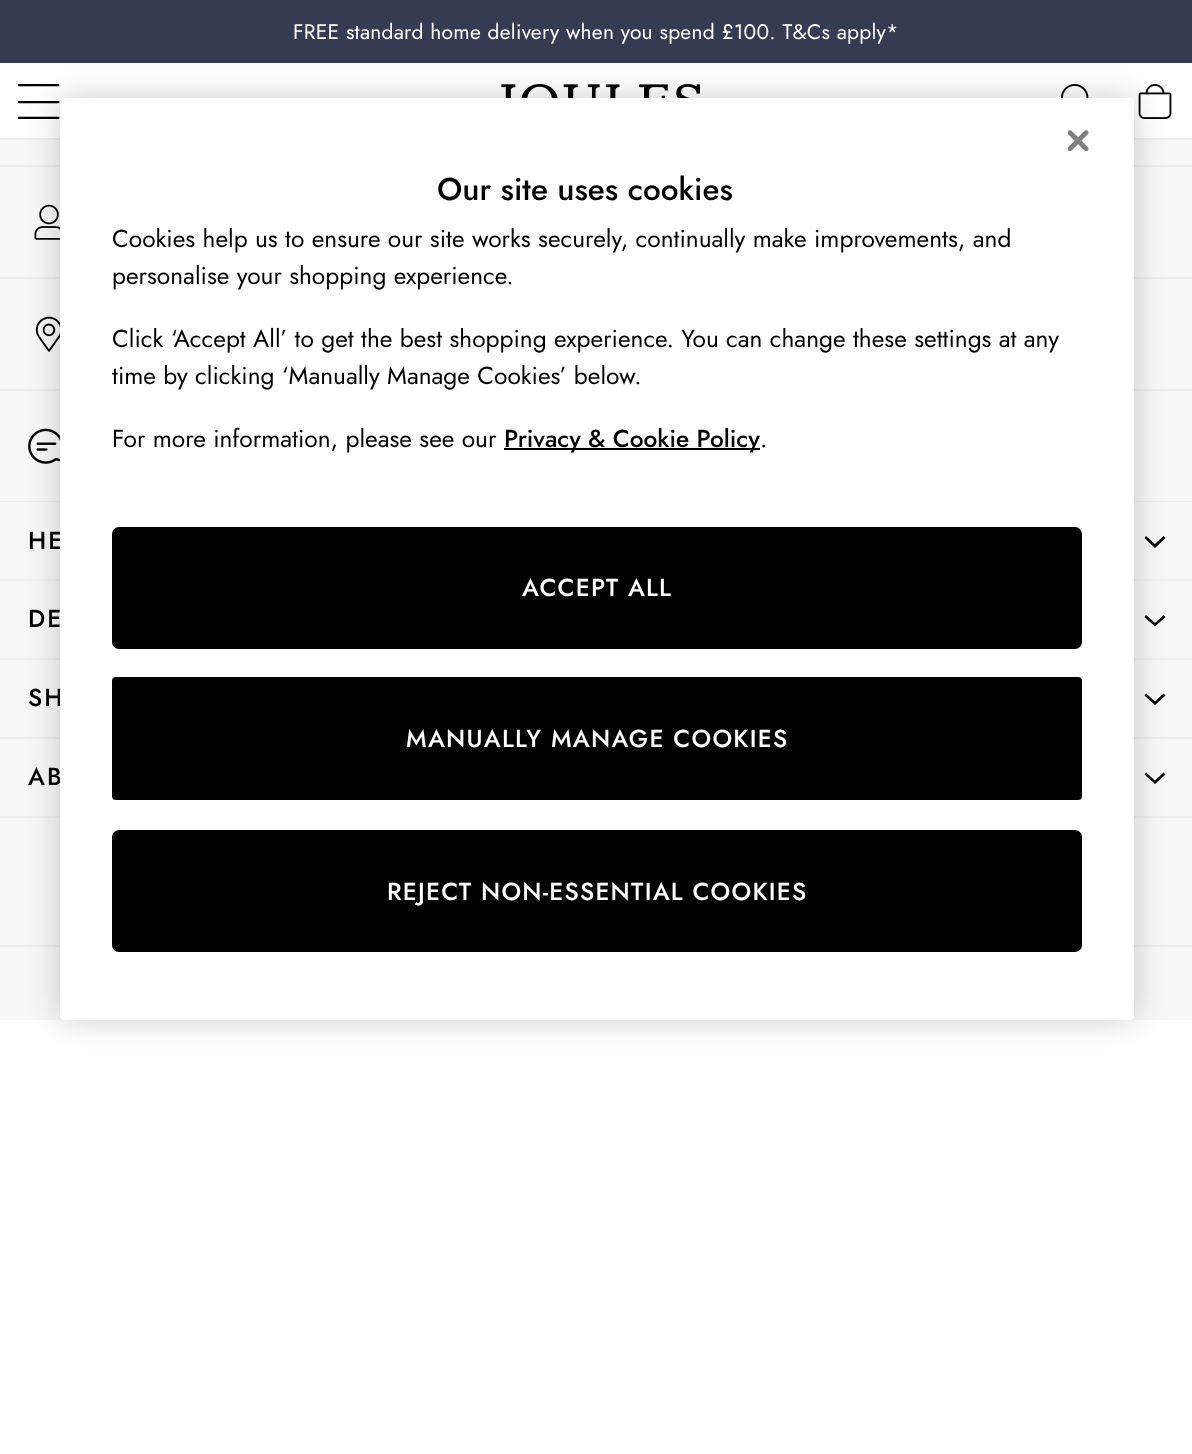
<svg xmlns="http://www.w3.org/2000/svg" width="1192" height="1454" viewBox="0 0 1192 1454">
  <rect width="100%" height="100%" fill="rgb(255,255,255)"/>
  <rect x="0" y="0" width="1192" height="63" fill="rgb(53,60,81)"/>
  <text x="293" y="39" font-family="Jost" font-size="21" letter-spacing="0.25" fill="rgb(255,255,255)">FREE standard home delivery when you spend £100. T&amp;Cs apply*</text>
  <rect x="0" y="138" width="1192" height="2" fill="rgb(238,238,238)"/>
  <image x="18" y="84" width="42" height="35" href="pic1.png"/>
  <image x="501" y="84" width="199" height="14" href="pic2.png"/>
  <image x="1060" y="84" width="29" height="14" href="pic3.png"/>
  <image x="1138" y="84" width="34" height="35" href="pic4.png"/>
  <rect x="0" y="140" width="1192" height="25" fill="rgb(247,247,247)"/>
  <rect x="0" y="167" width="1192" height="334" fill="rgb(247,247,247)"/>
  <rect x="0" y="165" width="1192" height="2" fill="rgb(238,238,238)"/>
  <rect x="0" y="277" width="1192" height="2" fill="rgb(238,238,238)"/>
  <image x="34" y="204" width="26" height="36" href="pic5.png"/>
  <rect x="0" y="389" width="1192" height="2" fill="rgb(238,238,238)"/>
  <image x="35" y="316" width="25" height="36" href="pic6.png"/>
  <rect x="0" y="501" width="1192" height="1" fill="rgb(238,238,238)"/>
  <image x="28" y="428" width="32" height="36" href="pic7.png"/>
  <rect x="0" y="581" width="1192" height="156" fill="rgb(247,247,247)"/>
  <rect x="0" y="502" width="1192" height="77" fill="rgb(247,247,247)"/>
  <rect x="0" y="579" width="1192" height="2" fill="rgb(238,238,238)"/>
  <text x="28" y="549" font-family="Jost" font-size="24.5" font-weight="500" letter-spacing="2" fill="rgb(0,0,0)">HE</text>
  <path d="M1163.5 536L1165.5 538L1155 548L1144.5 538L1146 536L1155 544Z" fill="rgb(0,0,0)" fill-rule="evenodd"/>
  <rect x="0" y="658" width="1192" height="2" fill="rgb(238,238,238)"/>
  <text x="28" y="627" font-family="Jost" font-size="24.5" font-weight="500" letter-spacing="2" fill="rgb(0,0,0)">DE</text>
  <path d="M1163.5 615L1165.5 617L1155 626.5L1144.5 617L1146 615L1155 623Z" fill="rgb(0,0,0)" fill-rule="evenodd"/>
  <rect x="0" y="737" width="1192" height="2" fill="rgb(238,238,238)"/>
  <text x="28" y="706" font-family="Jost" font-size="24.5" font-weight="500" letter-spacing="2" fill="rgb(0,0,0)">SH</text>
  <path d="M1163.5 693.5L1165.5 695.5L1155 705L1144.5 695.5L1146 693.5L1155 701.5Z" fill="rgb(0,0,0)" fill-rule="evenodd"/>
  <rect x="0" y="739" width="1192" height="77" fill="rgb(247,247,247)"/>
  <rect x="0" y="816" width="1192" height="2" fill="rgb(238,238,238)"/>
  <text x="28" y="785" font-family="Jost" font-size="24.5" font-weight="500" letter-spacing="2" fill="rgb(0,0,0)">AB</text>
  <path d="M1163.5 772.5L1165.5 774.5L1155 784L1144.5 774.5L1146 772.5L1155 780.5Z" fill="rgb(0,0,0)" fill-rule="evenodd"/>
  <rect x="0" y="818" width="1192" height="127" fill="rgb(247,247,247)"/>
  <rect x="0" y="947" width="1192" height="73" fill="rgb(247,247,247)"/>
  <rect x="0" y="945" width="1192" height="2" fill="rgb(238,238,238)"/>
  <rect x="60" y="98" width="1074" height="922" rx="4" fill="rgba(0,0,0,0.2)" filter="blur(16px)"/>
  <rect x="60" y="98" width="1074" height="922" rx="4" fill="rgb(255,255,255)"/>
  <image x="1068" y="130" width="21" height="21" href="pic8.png"/>
  <text x="437" y="200" font-family="'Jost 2'" font-size="31.5" font-weight="500" fill="rgb(0,0,0)">Our site uses cookies</text>
  <g font-family="'Jost 2'" font-size="24.5" fill="rgb(0,0,0)">
    <text>
      <tspan x="112" y="247">Cookies help us to ensure our site works securely, continually make improvements, and</tspan>
      <tspan x="112" y="284">personalise your shopping experience.</tspan>
    </text>
    <text>
      <tspan x="112" y="347">Click ‘Accept All’ to get the best shopping experience. You can change these settings at any</tspan>
      <tspan x="112" y="384">time by clicking ‘Manually Manage Cookies’ below.</tspan>
    </text>
    <text x="112" y="447">For more information, please see our</text>
  </g>
  <rect x="504" y="448" width="256" height="2" fill="rgb(0,0,0)"/>
  <text x="504" y="447" font-family="Jost" font-size="24.5" font-weight="500" fill="rgb(0,0,0)">Privacy &amp; Cookie Policy</text>
  <text x="760" y="447" font-family="'Jost 2'" font-size="24.5" fill="rgb(0,0,0)">.</text>
  <rect x="113" y="528" width="968" height="120" rx="6" fill="rgb(0,0,0)" stroke="rgb(0,0,0)" stroke-width="2"/>
  <text x="522" y="596" font-family="'Jost 2'" font-size="24.5" font-weight="500" letter-spacing="1.25" fill="rgb(255,255,255)">ACCEPT ALL</text>
  <rect x="113" y="831" width="968" height="120" rx="6" fill="rgb(0,0,0)" stroke="rgb(0,0,0)" stroke-width="2"/>
  <text x="387" y="900" font-family="'Jost 2'" font-size="24.5" font-weight="500" letter-spacing="1.25" fill="rgb(255,255,255)">REJECT NON-ESSENTIAL COOKIES</text>
  <rect x="113" y="678" width="968" height="121" rx="3" fill="rgb(0,0,0)" stroke="rgb(0,0,0)" stroke-width="2"/>
  <text x="406" y="747" font-family="'Jost 2'" font-size="24.5" font-weight="500" letter-spacing="1.25" fill="rgb(255,255,255)">MANUALLY MANAGE COOKIES</text>
</svg>
